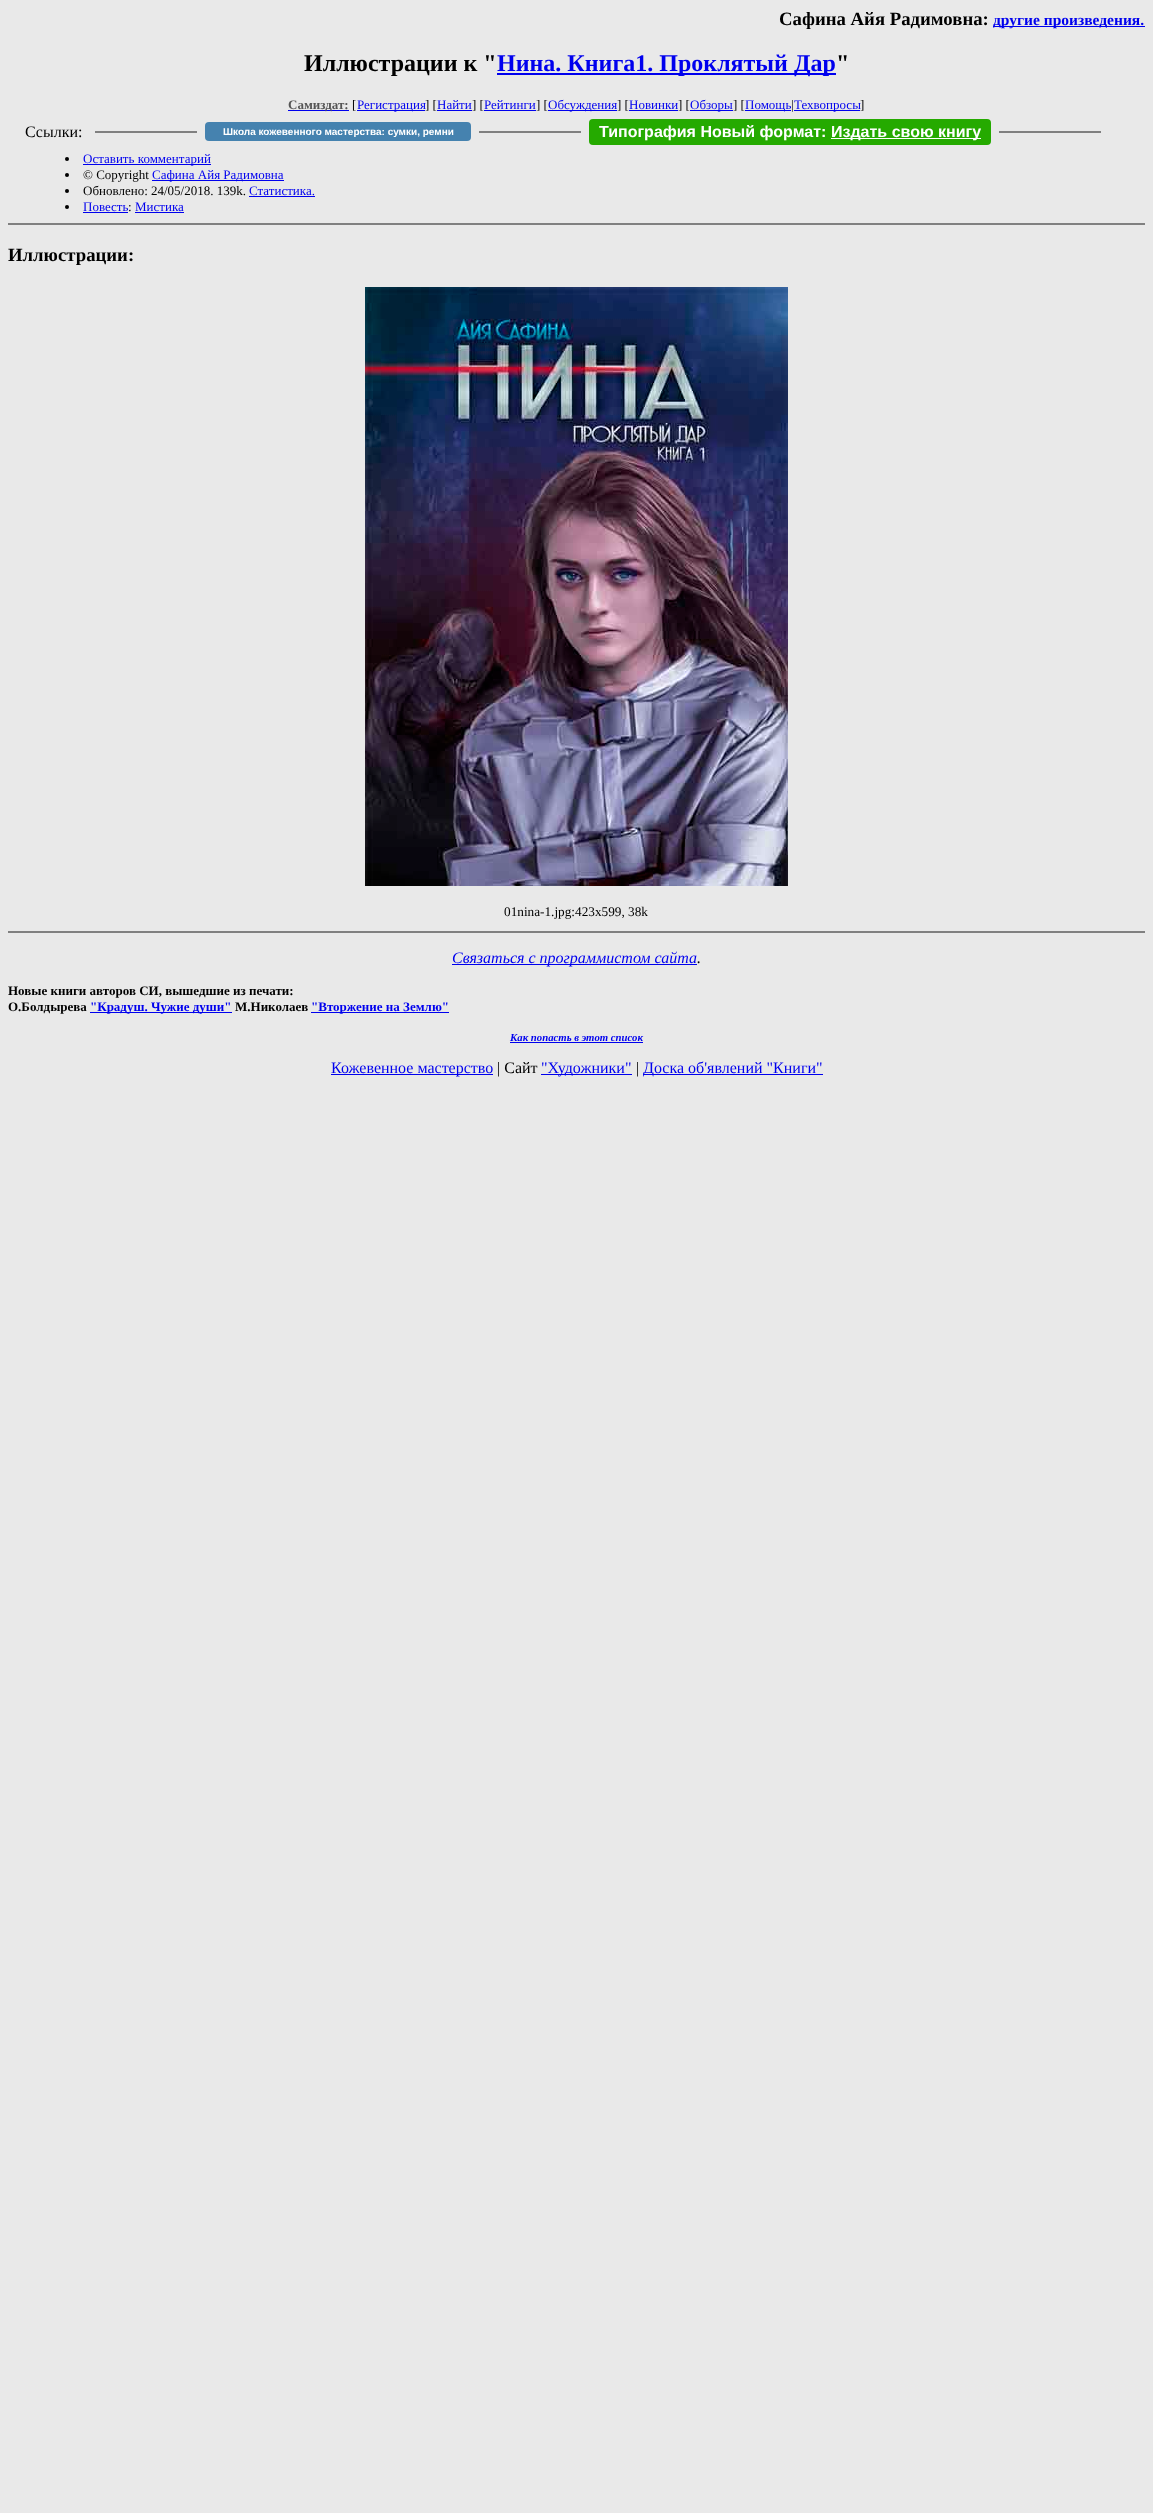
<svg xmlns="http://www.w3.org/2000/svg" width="1153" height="2513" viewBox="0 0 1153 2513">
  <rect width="100%" height="100%" fill="rgb(233,233,233)"/>
  <text x="779" y="25" font-family="Liberation Serif" font-size="18.75" font-weight="bold" fill="rgb(0,0,0)">Сафина Айя Радимовна:</text>
  <rect x="993" y="26" width="152" height="1" fill="rgb(0,0,238)"/>
  <text x="993" y="25" font-family="Liberation Serif" font-size="15.5" font-weight="bold" fill="rgb(0,0,238)">другие произведения.</text>
  <text x="304" y="71" font-family="Liberation Serif" font-size="24" font-weight="bold" fill="rgb(0,0,0)">Иллюстрации к "</text>
  <rect x="497" y="73" width="339" height="2" fill="rgb(0,0,238)"/>
  <text x="497" y="71" font-family="Liberation Serif" font-size="24" font-weight="bold" fill="rgb(0,0,238)">Нина. Книга1. Проклятый Дар</text>
  <text x="836" y="71" font-family="Liberation Serif" font-size="24" font-weight="bold" fill="rgb(0,0,0)">"</text>
  <rect x="288" y="110" width="61" height="1" fill="rgb(0,0,238)"/>
  <text x="288" y="109" font-family="Liberation Serif" font-size="13" font-weight="bold" fill="rgb(85,85,85)">Самиздат:</text>
  <text x="352" y="109" font-family="Liberation Serif" font-size="13" fill="rgb(0,0,0)">[</text>
  <rect x="357" y="110" width="68" height="1" fill="rgb(0,0,238)"/>
  <text x="357" y="109" font-family="Liberation Serif" font-size="13" fill="rgb(0,0,238)">Регистрация</text>
  <text x="425" y="109" font-family="Liberation Serif" font-size="13" fill="rgb(0,0,0)">] [</text>
  <rect x="437" y="110" width="35" height="1" fill="rgb(0,0,238)"/>
  <text x="437" y="109" font-family="Liberation Serif" font-size="13" fill="rgb(0,0,238)">Найти</text>
  <text x="472" y="109" font-family="Liberation Serif" font-size="13" fill="rgb(0,0,0)">] [</text>
  <rect x="484" y="110" width="52" height="1" fill="rgb(0,0,238)"/>
  <text x="484" y="109" font-family="Liberation Serif" font-size="13" fill="rgb(0,0,238)">Рейтинги</text>
  <text x="536" y="109" font-family="Liberation Serif" font-size="13" fill="rgb(0,0,0)">] [</text>
  <rect x="548" y="110" width="69" height="1" fill="rgb(0,0,238)"/>
  <text x="548" y="109" font-family="Liberation Serif" font-size="13" fill="rgb(0,0,238)">Обсуждения</text>
  <text x="617" y="109" font-family="Liberation Serif" font-size="13" fill="rgb(0,0,0)">] [</text>
  <rect x="629" y="110" width="49" height="1" fill="rgb(0,0,238)"/>
  <text x="629" y="109" font-family="Liberation Serif" font-size="13" fill="rgb(0,0,238)">Новинки</text>
  <text x="678" y="109" font-family="Liberation Serif" font-size="13" fill="rgb(0,0,0)">] [</text>
  <rect x="690" y="110" width="43" height="1" fill="rgb(0,0,238)"/>
  <text x="690" y="109" font-family="Liberation Serif" font-size="13" fill="rgb(0,0,238)">Обзоры</text>
  <text x="733" y="109" font-family="Liberation Serif" font-size="13" fill="rgb(0,0,0)">] [</text>
  <rect x="745" y="110" width="46" height="1" fill="rgb(0,0,238)"/>
  <text x="745" y="109" font-family="Liberation Serif" font-size="13" fill="rgb(0,0,238)">Помощь</text>
  <text x="791" y="109" font-family="Liberation Serif" font-size="13" fill="rgb(0,0,0)">|</text>
  <rect x="794" y="110" width="66" height="1" fill="rgb(0,0,238)"/>
  <text x="794" y="109" font-family="Liberation Serif" font-size="13" fill="rgb(0,0,238)">Техвопросы</text>
  <text x="860" y="109" font-family="Liberation Serif" font-size="13" fill="rgb(0,0,0)">]</text>
  <text x="25" y="137" font-family="Liberation Serif" font-size="16" fill="rgb(0,0,0)">Ссылки:</text>
  <rect x="95" y="131" width="102" height="2" fill="rgb(128,128,128)"/>
  <rect x="205" y="122" width="266" height="19" rx="4" fill="rgb(69,130,175)"/>
  <text x="223" y="135" font-family="Liberation Sans" font-size="10" font-weight="bold" fill="rgb(255,255,255)">Школа кожевенного мастерства: сумки, ремни</text>
  <rect x="479" y="131" width="102" height="2" fill="rgb(128,128,128)"/>
  <rect x="589" y="119" width="402" height="26" rx="4" fill="rgb(37,170,0)"/>
  <text x="599" y="137" font-family="Liberation Sans" font-size="16" font-weight="bold" fill="rgb(255,255,255)">Типография Новый формат:</text>
  <rect x="831" y="138" width="150" height="1" fill="rgb(255,255,255)"/>
  <text x="831" y="137" font-family="Liberation Sans" font-size="16" font-weight="bold" fill="rgb(255,255,255)">Издать свою книгу</text>
  <rect x="999" y="131" width="102" height="2" fill="rgb(128,128,128)"/>
  <circle cx="67" cy="159" r="2" fill="rgb(0,0,0)"/>
  <rect x="83" y="164" width="128" height="1" fill="rgb(0,0,238)"/>
  <text x="83" y="163" font-family="Liberation Serif" font-size="13" fill="rgb(0,0,238)">Оставить комментарий</text>
  <circle cx="67" cy="175" r="2" fill="rgb(0,0,0)"/>
  <text x="83" y="179" font-family="Liberation Serif" font-size="13" fill="rgb(0,0,0)">© Copyright</text>
  <rect x="152" y="180" width="132" height="1" fill="rgb(0,0,238)"/>
  <text x="152" y="179" font-family="Liberation Serif" font-size="13" fill="rgb(0,0,238)">Сафина Айя Радимовна</text>
  <circle cx="67" cy="191" r="2" fill="rgb(0,0,0)"/>
  <text x="83" y="195" font-family="Liberation Serif" font-size="13" fill="rgb(0,0,0)">Обновлено: 24/05/2018. 139k.</text>
  <text x="249" y="195" font-family="Liberation Serif" font-size="13" fill="rgb(0,0,238)">Статистика.</text>
  <rect x="249" y="196" width="66" height="1" fill="rgb(0,0,238)"/>
  <circle cx="67" cy="207" r="2" fill="rgb(0,0,0)"/>
  <text x="83" y="211" font-family="Liberation Serif" font-size="13" fill="rgb(0,0,238)">Повесть</text>
  <rect x="83" y="212" width="45" height="1" fill="rgb(0,0,238)"/>
  <text x="128" y="211" font-family="Liberation Serif" font-size="13" fill="rgb(0,0,0)">:</text>
  <text x="135" y="211" font-family="Liberation Serif" font-size="13" fill="rgb(0,0,238)">Мистика</text>
  <rect x="135" y="212" width="49" height="1" fill="rgb(0,0,238)"/>
  <rect x="8" y="223" width="1137" height="2" fill="rgb(128,128,128)"/>
  <text x="8" y="261" font-family="Liberation Serif" font-size="18.75" font-weight="bold" fill="rgb(0,0,0)">Иллюстрации:</text>
  <image x="365" y="287" width="423" height="599" href="pic1.png"/>
  <text x="504" y="916" font-family="Liberation Serif" font-size="13.25" fill="rgb(0,0,0)">01nina-1.jpg:423x599, 38k</text>
  <rect x="8" y="931" width="1137" height="2" fill="rgb(128,128,128)"/>
  <rect x="452" y="964" width="245" height="1" fill="rgb(0,0,238)"/>
  <text x="452" y="963" font-family="Liberation Serif" font-size="16" font-style="italic" fill="rgb(0,0,238)">Связаться с программистом сайта</text>
  <text x="697" y="963" font-family="Liberation Serif" font-size="16" font-style="italic" fill="rgb(0,0,0)">.</text>
  <g font-family="Liberation Serif" font-size="13" font-weight="bold" fill="rgb(0,0,0)">
    <text>
      <tspan x="8" y="995">Новые книги авторов СИ, вышедшие из печати:</tspan>
      <tspan x="8" y="1011">О.Болдырева</tspan>
    </text>
  </g>
  <rect x="90" y="1012" width="142" height="1" fill="rgb(0,0,238)"/>
  <text x="90" y="1011" font-family="Liberation Serif" font-size="13" font-weight="bold" fill="rgb(0,0,238)">"Крадуш. Чужие души"</text>
  <text x="235" y="1011" font-family="Liberation Serif" font-size="13" font-weight="bold" fill="rgb(0,0,0)">М.Николаев</text>
  <rect x="311" y="1012" width="138" height="1" fill="rgb(0,0,238)"/>
  <text x="311" y="1011" font-family="Liberation Serif" font-size="13" font-weight="bold" fill="rgb(0,0,238)">"Вторжение на Землю"</text>
  <text x="510" y="1041" font-family="Liberation Serif" font-size="10.75" font-weight="bold" font-style="italic" fill="rgb(0,0,238)">Как попасть в этoт список</text>
  <rect x="510" y="1042" width="133" height="1" fill="rgb(0,0,238)"/>
  <rect x="331" y="1074" width="162" height="1" fill="rgb(0,0,238)"/>
  <text x="331" y="1073" font-family="Liberation Serif" font-size="16" fill="rgb(0,0,238)">Кожевенное мастерство</text>
  <text x="497" y="1073" font-family="Liberation Serif" font-size="16" fill="rgb(0,0,0)">| Сайт</text>
  <rect x="541" y="1074" width="91" height="1" fill="rgb(0,0,238)"/>
  <text x="541" y="1073" font-family="Liberation Serif" font-size="16" fill="rgb(0,0,238)">"Художники"</text>
  <text x="636" y="1073" font-family="Liberation Serif" font-size="16" fill="rgb(0,0,0)">|</text>
  <rect x="643" y="1074" width="180" height="1" fill="rgb(0,0,238)"/>
  <text x="643" y="1073" font-family="Liberation Serif" font-size="16" fill="rgb(0,0,238)">Доска об'явлений "Книги"</text>
</svg>
